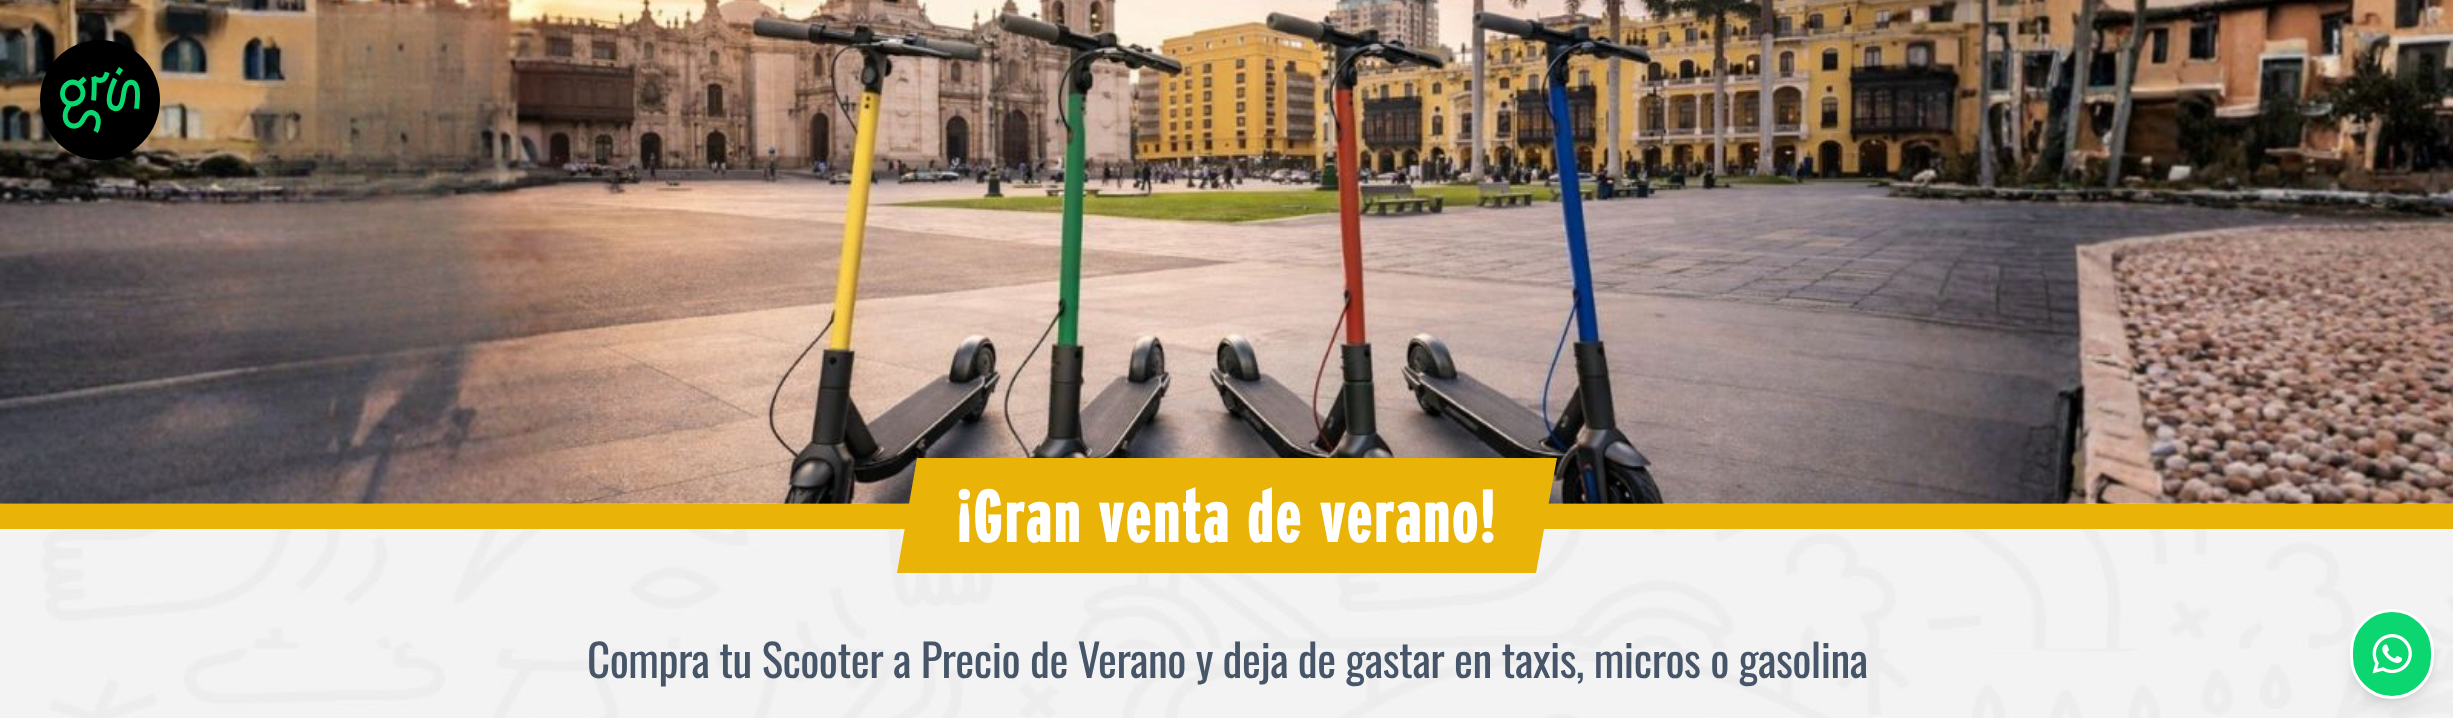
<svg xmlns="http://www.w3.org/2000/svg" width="2453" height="718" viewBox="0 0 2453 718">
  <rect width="100%" height="100%" fill="rgb(255,255,255)"/>
  <image x="0" y="503" width="2453" height="215" href="pic3.png"/>
  <image x="0" y="0" width="2453" height="504" href="pic1.png"/>
  <circle cx="100" cy="100" r="60" fill="rgb(0,0,0)"/>
  <image x="60" y="67" width="80" height="66" href="pic2.png"/>
  <rect x="0" y="504" width="2453" height="25" fill="rgb(234,179,8)"/>
  <path d="M917 458H1557L1536 573H897Z" fill="rgb(234,179,8)"/>
  <text x="957" y="542" font-family="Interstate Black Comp" font-size="75" font-weight="900" letter-spacing="1.9" fill="rgb(255,255,255)">¡Gran venta de verano!</text>
  <text x="587" y="678" font-family="Oswald" font-size="45" letter-spacing="-0.5" fill="rgb(71,85,105)">Compra tu Scooter a Precio de Verano y deja de gastar en taxis, micros o gasolina</text>
  <rect x="2355" y="619" width="74" height="80" rx="37" fill="rgba(0,0,0,0.1)" filter="blur(4px)"/>
  <rect x="2354" y="625" width="76" height="83" rx="38" fill="rgba(0,0,0,0.1)" filter="blur(9.5px)"/>
  <rect x="2351.5" y="610.5" width="81" height="87" rx="40.5" fill="rgb(12,214,112)" stroke="rgb(255,255,255)" stroke-width="3"/>
  <image x="2372" y="634" width="40" height="40" href="pic4.png"/>
</svg>
